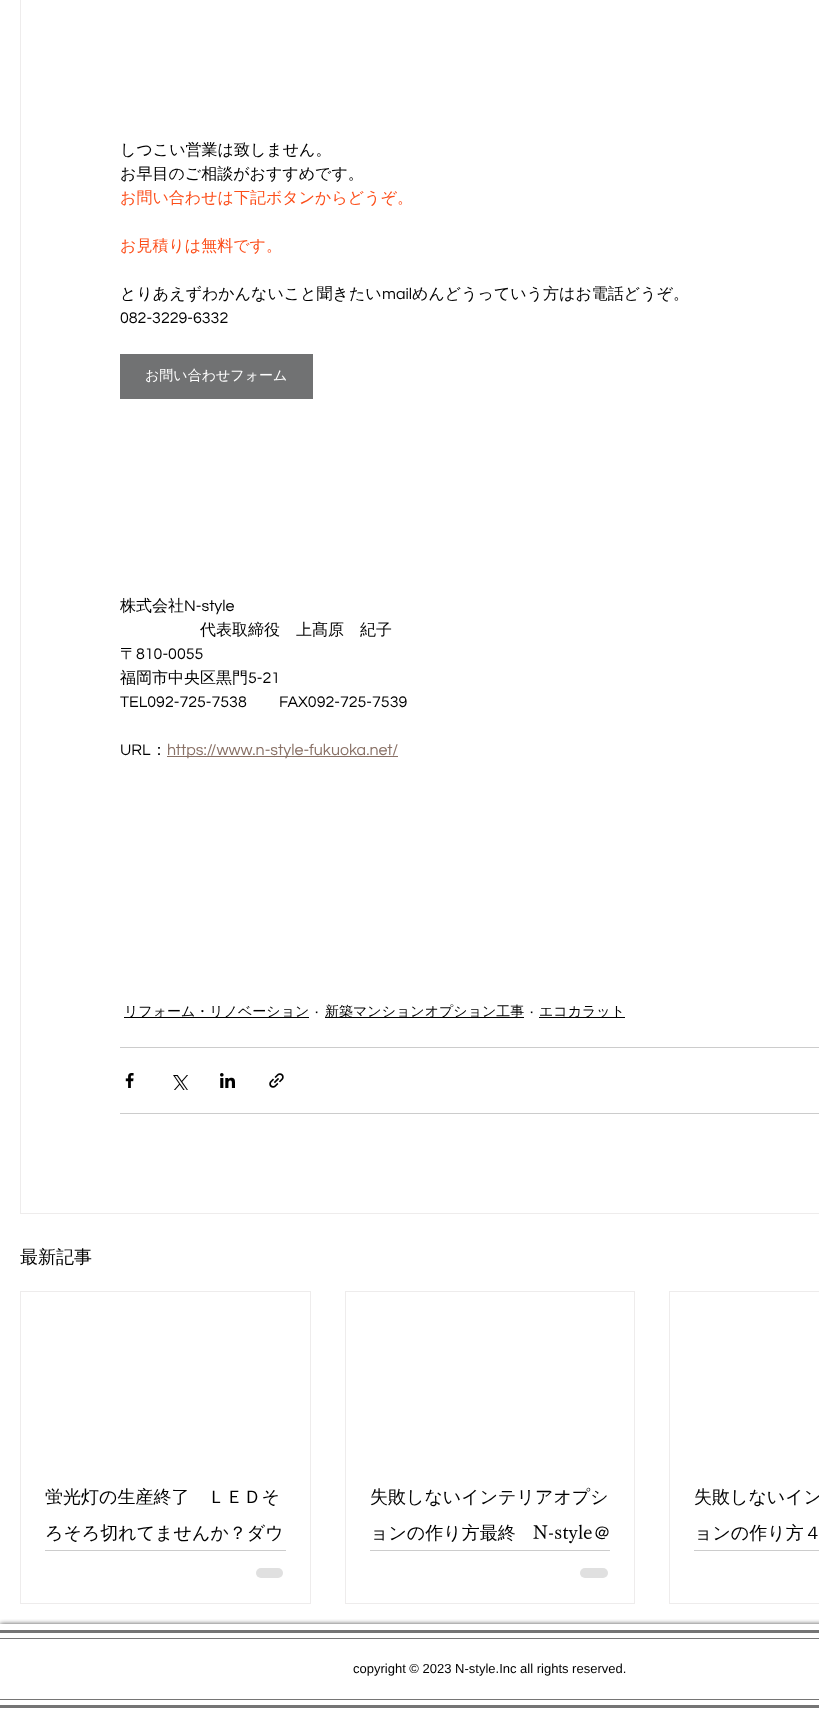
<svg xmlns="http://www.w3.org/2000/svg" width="819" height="1714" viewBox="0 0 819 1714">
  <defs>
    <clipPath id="clip1"><rect x="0" y="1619" width="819" height="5"/></clipPath>
  </defs>
  <rect width="100%" height="100%" fill="rgb(255,255,255)"/>
  <rect x="20.5" y="-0.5" width="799" height="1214" fill="none" stroke="rgb(238,236,236)"/>
  <g font-family="WenQuanYi Zen Hei" font-size="16" font-weight="500" fill="rgb(0,0,0)">
    <text>
      <tspan x="120" y="155">しつこい営業は致しません。</tspan>
      <tspan x="120" y="179">お早目のご相談がおすすめです。</tspan>
    </text>
  </g>
  <g font-family="WenQuanYi Zen Hei" font-size="16" font-weight="500" fill="rgb(252,78,26)">
    <text x="120" y="203">お問い合わせは下記ボタンからどうぞ。</text>
    <text x="120" y="251">お見積りは無料です。</text>
  </g>
  <text x="120" y="299" font-family="WenQuanYi Zen Hei" font-size="16" font-weight="500" fill="rgb(0,0,0)">とりあえずわかんないこと聞きたい</text>
  <text x="382" y="299" font-family="Questrial" font-size="16" fill="rgb(0,0,0)">mail</text>
  <text x="412" y="299" font-family="WenQuanYi Zen Hei" font-size="16" font-weight="500" fill="rgb(0,0,0)">めんどうっていう方はお電話どうぞ。</text>
  <text x="120" y="323" font-family="Questrial" font-size="16" fill="rgb(0,0,0)">082-3229-6332</text>
  <rect x="120" y="354" width="193" height="45" fill="rgb(113,114,115)"/>
  <text x="145" y="380" font-family="WenQuanYi Zen Hei" font-size="14" font-weight="500" fill="rgb(255,255,255)">お問い合わせフォーム</text>
  <text x="120" y="611" font-family="WenQuanYi Zen Hei" font-size="16" font-weight="500" fill="rgb(0,0,0)">株式会社</text>
  <text x="184" y="611" font-family="Questrial" font-size="16" fill="rgb(0,0,0)">N-style</text>
  <g font-family="WenQuanYi Zen Hei" font-size="16" font-weight="500" fill="rgb(0,0,0)">
    <text x="200" y="635">代表取締役　上髙原　紀子</text>
    <text x="120" y="659">〒</text>
  </g>
  <text x="136" y="659" font-family="Questrial" font-size="16" fill="rgb(0,0,0)">810-0055</text>
  <text x="120" y="683" font-family="WenQuanYi Zen Hei" font-size="16" font-weight="500" fill="rgb(0,0,0)">福岡市中央区黒門</text>
  <g font-family="Questrial" font-size="16" fill="rgb(0,0,0)">
    <text x="248" y="683">5-21</text>
    <text x="120" y="707">TEL092-725-7538</text>
    <text x="279" y="707">FAX092-725-7539</text>
    <text x="120" y="755">URL</text>
  </g>
  <text x="151" y="755" font-family="WenQuanYi Zen Hei" font-size="16" font-weight="500" fill="rgb(0,0,0)">：</text>
  <rect x="167" y="756" width="231" height="1" fill="rgb(137,113,102)"/>
  <text x="167" y="755" font-family="Questrial" font-size="16" fill="rgb(137,113,102)">https://www.n-style-fukuoka.net/</text>
  <rect x="124" y="1017" width="185" height="1" fill="rgb(0,0,0)"/>
  <text x="124" y="1016" font-family="WenQuanYi Zen Hei" font-size="14" font-weight="500" fill="rgb(0,0,0)">リフォーム・リノベーション</text>
  <text x="315" y="1017" font-family="Questrial" font-size="16" fill="rgb(0,0,0)">·</text>
  <rect x="325" y="1017" width="199" height="1" fill="rgb(0,0,0)"/>
  <text x="325" y="1016" font-family="WenQuanYi Zen Hei" font-size="14" font-weight="500" fill="rgb(0,0,0)">新築マンションオプション工事</text>
  <text x="530" y="1017" font-family="Questrial" font-size="16" fill="rgb(0,0,0)">·</text>
  <rect x="539" y="1017" width="86" height="1" fill="rgb(0,0,0)"/>
  <text x="539" y="1016" font-family="WenQuanYi Zen Hei" font-size="14" font-weight="500" fill="rgb(0,0,0)">エコカラット</text>
  <rect x="120" y="1047" width="699" height="1" fill="rgb(204,204,204)"/>
  <image x="125" y="1073" width="9" height="15" href="pic1.png"/>
  <image x="173" y="1075" width="15" height="15" href="pic2.png"/>
  <image x="220" y="1073" width="15" height="15" href="pic3.png"/>
  <image x="269" y="1073" width="15" height="15" href="pic4.png"/>
  <rect x="120" y="1113" width="699" height="1" fill="rgb(204,204,204)"/>
  <text x="20" y="1263" font-family="WenQuanYi Zen Hei" font-size="18" font-weight="500" fill="rgb(0,0,0)">最新記事</text>
  <rect x="20.5" y="1291.5" width="290" height="312" fill="none" stroke="rgb(238,236,236)"/>
  <g font-family="WenQuanYi Zen Hei" font-size="18" font-weight="500" fill="rgb(0,0,0)">
    <text x="45" y="1503">蛍光灯の生産終了　ＬＥＤそ</text>
    <text x="45" y="1539">ろそろ切れてませんか？ダウ</text>
  </g>
  <rect x="45" y="1550" width="241" height="1" fill="rgb(204,204,204)"/>
  <rect x="256" y="1568" width="27" height="10" rx="5" fill="rgb(224,224,224)"/>
  <rect x="345.5" y="1291.5" width="289" height="312" fill="none" stroke="rgb(238,236,236)"/>
  <g font-family="WenQuanYi Zen Hei" font-size="18" font-weight="500" fill="rgb(0,0,0)">
    <text x="370" y="1503">失敗しないインテリアオプシ</text>
    <text x="370" y="1539">ョンの作り方最終</text>
  </g>
  <text x="533" y="1539" font-family="'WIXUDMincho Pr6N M'" font-size="18" font-weight="500" fill="rgb(0,0,0)">N-style</text>
  <text x="593" y="1539" font-family="WenQuanYi Zen Hei" font-size="18" font-weight="500" fill="rgb(0,0,0)">＠</text>
  <rect x="370" y="1550" width="240" height="1" fill="rgb(204,204,204)"/>
  <rect x="580" y="1568" width="28" height="10" rx="5" fill="rgb(224,224,224)"/>
  <rect x="669.5" y="1291.5" width="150" height="312" fill="none" stroke="rgb(238,236,236)"/>
  <g font-family="WenQuanYi Zen Hei" font-size="18" font-weight="500" fill="rgb(0,0,0)">
    <text x="694" y="1503">失敗しないイン</text>
    <text x="694" y="1539">ョンの作り方４</text>
  </g>
  <rect x="694" y="1550" width="125" height="1" fill="rgb(204,204,204)"/>
  <g clip-path="url(#clip1)">
    <rect x="0" y="1624" width="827" height="90" fill="rgba(0,0,0,0.7)" filter="blur(2.5px)"/>
  </g>
  <rect x="0" y="1630" width="819" height="3" fill="rgb(117,117,117)"/>
  <rect x="0" y="1705" width="819" height="3" fill="rgb(117,117,117)"/>
  <rect x="0" y="1638" width="819" height="1" fill="rgb(117,117,117)"/>
  <rect x="0" y="1699" width="819" height="1" fill="rgb(117,117,117)"/>
  <text x="353" y="1673" font-family="Liberation Sans" font-size="13" fill="rgb(0,0,0)">copyright ©︎ 2023 N-style.Inc all rights reserved.</text>
</svg>
